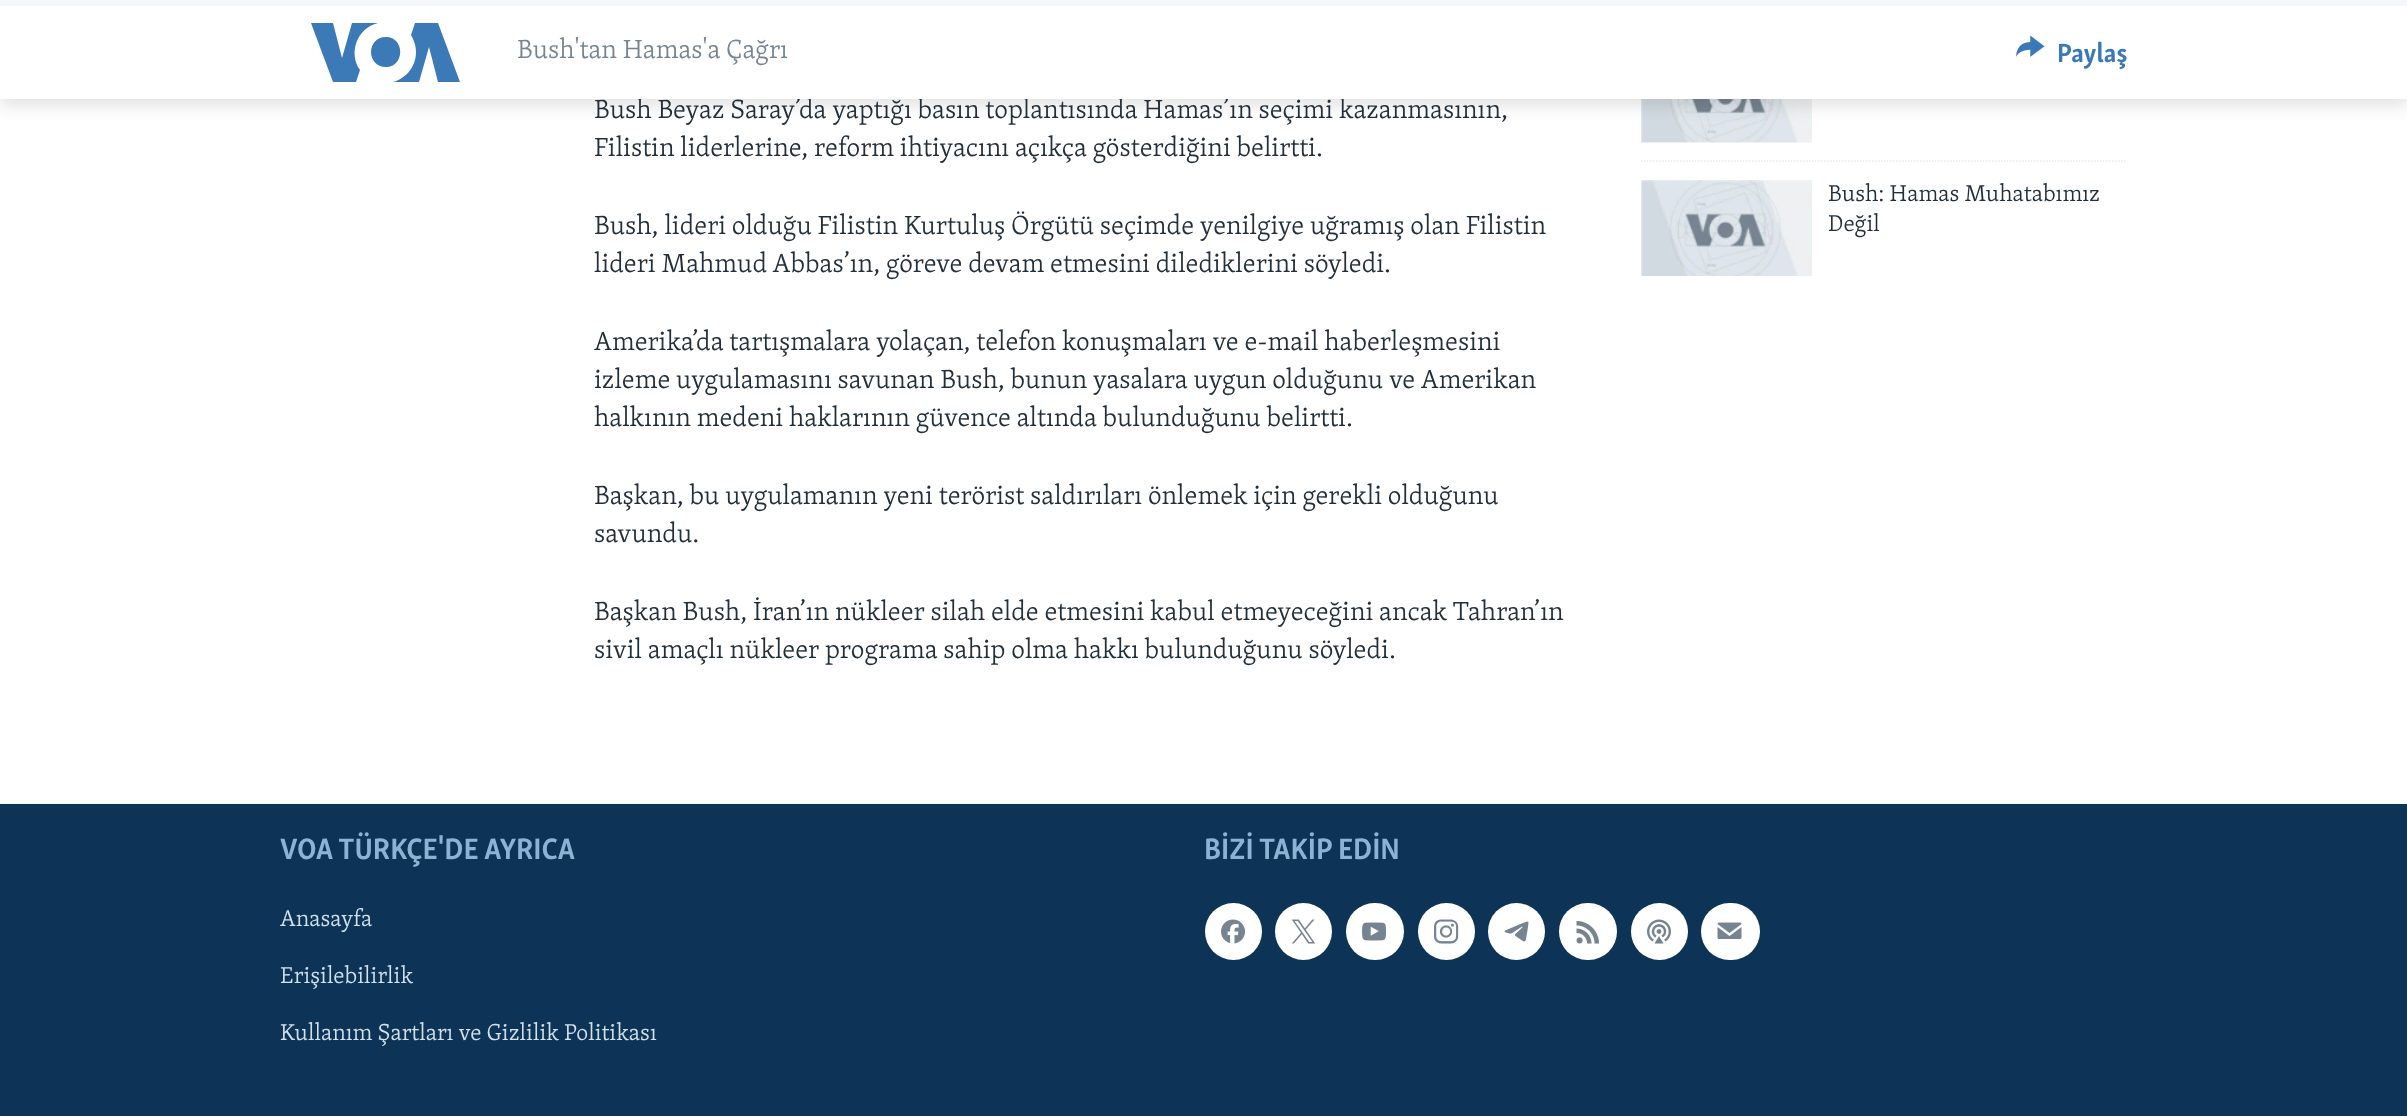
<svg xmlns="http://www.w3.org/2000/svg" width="2407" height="1116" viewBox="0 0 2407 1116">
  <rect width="100%" height="100%" fill="rgb(255,255,255)"/>
  <rect x="1641" y="99" width="170" height="44" fill="rgb(246,247,248)"/>
  <image x="1641" y="99" width="171" height="44" href="pic2.png"/>
  <rect x="0" y="8" width="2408" height="99" fill="rgba(0,0,0,0.1)" filter="blur(7.5px)"/>
  <text x="594" y="118" font-family="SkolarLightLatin" font-size="27" font-weight="300" fill="rgb(34,47,58)">Bush Beyaz Saray’da yaptığı basın toplantısında Hamas’ın seçimi kazanmasının,</text>
  <rect x="0" y="6" width="2407" height="93" fill="rgb(255,255,255)"/>
  <rect x="0" y="0" width="2407" height="6" fill="rgb(246,247,248)"/>
  <path d="M360 70L356 82H333L311 23H333L342 58L352 23H378C357 28 348 53 360 70ZM386 37C366 37 366 67 386 67C405 67 405 37 386 37ZM416 52C416 66 407 78 393 82H419L429 47L438 82H460L438 23H415L411 35C414 40 416 46 416 52Z" fill="rgb(59,121,183)"/>
  <text x="517" y="58" font-family="SkolarLightLatin" font-size="27" font-weight="300" fill="rgb(118,132,146)">Bush'tan Hamas'a Çağrı</text>
  <image x="2016" y="35" width="29" height="22" href="pic1.png"/>
  <text x="2057" y="62" font-family="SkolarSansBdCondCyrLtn" font-size="27" font-weight="bold" fill="rgb(58,121,183)">Paylaş</text>
  <g font-family="SkolarLightLatin" font-size="27" font-weight="300" fill="rgb(34,47,58)">
    <text x="594" y="156">Filistin liderlerine, reform ihtiyacını açıkça gösterdiğini belirtti.</text>
    <text>
      <tspan x="594" y="234">Bush, lideri olduğu Filistin Kurtuluş Örgütü seçimde yenilgiye uğramış olan Filistin</tspan>
      <tspan x="594" y="272">lideri Mahmud Abbas’ın, göreve devam etmesini dilediklerini söyledi.</tspan>
    </text>
    <text>
      <tspan x="594" y="350">Amerika’da tartışmalara yolaçan, telefon konuşmaları ve e-mail haberleşmesini</tspan>
      <tspan x="594" y="388">izleme uygulamasını savunan Bush, bunun yasalara uygun olduğunu ve Amerikan</tspan>
      <tspan x="594" y="426">halkının medeni haklarının güvence altında bulunduğunu belirtti.</tspan>
    </text>
    <text>
      <tspan x="594" y="504">Başkan, bu uygulamanın yeni terörist saldırıları önlemek için gerekli olduğunu</tspan>
      <tspan x="594" y="542">savundu.</tspan>
    </text>
    <text>
      <tspan x="594" y="620">Başkan Bush, İran’ın nükleer silah elde etmesini kabul etmeyeceğini ancak Tahran’ın</tspan>
      <tspan x="594" y="658">sivil amaçlı nükleer programa sahip olma hakkı bulunduğunu söyledi.</tspan>
    </text>
  </g>
  <path d="M1641 161H2127" fill="none" stroke="rgb(232,234,236)" stroke-width="1.5" stroke-dasharray="1.5 1.5"/>
  <rect x="1641" y="180" width="170" height="96" fill="rgb(246,247,248)"/>
  <image x="1641" y="180" width="171" height="96" href="pic3.png"/>
  <g font-family="SkolarLightLatin" font-size="23.6" font-weight="300" fill="rgb(34,47,58)">
    <text>
      <tspan x="1828" y="201">Bush: Hamas Muhatabımız</tspan>
      <tspan x="1828" y="231">Değil</tspan>
    </text>
  </g>
  <rect x="0" y="804" width="2407" height="312" fill="rgb(13,52,86)"/>
  <text x="280" y="859" font-family="SkolarSansBdCondCyrLtn" font-size="30.4" font-weight="bold" fill="rgb(141,179,212)">VOA TÜRKÇE'DE AYRICA</text>
  <g font-family="SkolarLightLatin" font-size="23.6" font-weight="300" fill="rgb(209,225,238)">
    <text x="280" y="926">Anasayfa</text>
    <text x="280" y="983">Erişilebilirlik</text>
    <text x="280" y="1040">Kullanım Şartları ve Gizlilik Politikası</text>
  </g>
  <text x="1204" y="859" font-family="SkolarSansBdCondCyrLtn" font-size="30.4" font-weight="bold" fill="rgb(141,179,212)">BİZİ TAKİP EDİN</text>
  <circle cx="1233.5" cy="931.5" r="28.5" fill="rgb(255,255,255)"/>
  <image x="1221" y="919" width="24" height="25" href="pic4.png"/>
  <circle cx="1303.5" cy="931.5" r="28.5" fill="rgb(255,255,255)"/>
  <image x="1291" y="919" width="25" height="25" href="pic5.png"/>
  <rect x="1346" y="903" width="58" height="57" rx="28.5" fill="rgb(255,255,255)"/>
  <image x="1362" y="922" width="24" height="19" href="pic6.png"/>
  <circle cx="1446.5" cy="931.5" r="28.5" fill="rgb(255,255,255)"/>
  <image x="1434" y="919" width="25" height="25" href="pic7.png"/>
  <circle cx="1516.5" cy="931.5" r="28.5" fill="rgb(255,255,255)"/>
  <image x="1504" y="921" width="25" height="21" href="pic8.png"/>
  <rect x="1559" y="903" width="58" height="57" rx="28.5" fill="rgb(255,255,255)"/>
  <image x="1576" y="921" width="23" height="23" href="pic9.png"/>
  <circle cx="1659.5" cy="931.5" r="28.5" fill="rgb(255,255,255)"/>
  <image x="1647" y="919" width="24" height="25" href="pic10.png"/>
  <rect x="1701" y="903" width="59" height="57" rx="28.5" fill="rgb(255,255,255)"/>
  <image x="1717" y="922" width="25" height="17" href="pic11.png"/>
</svg>
